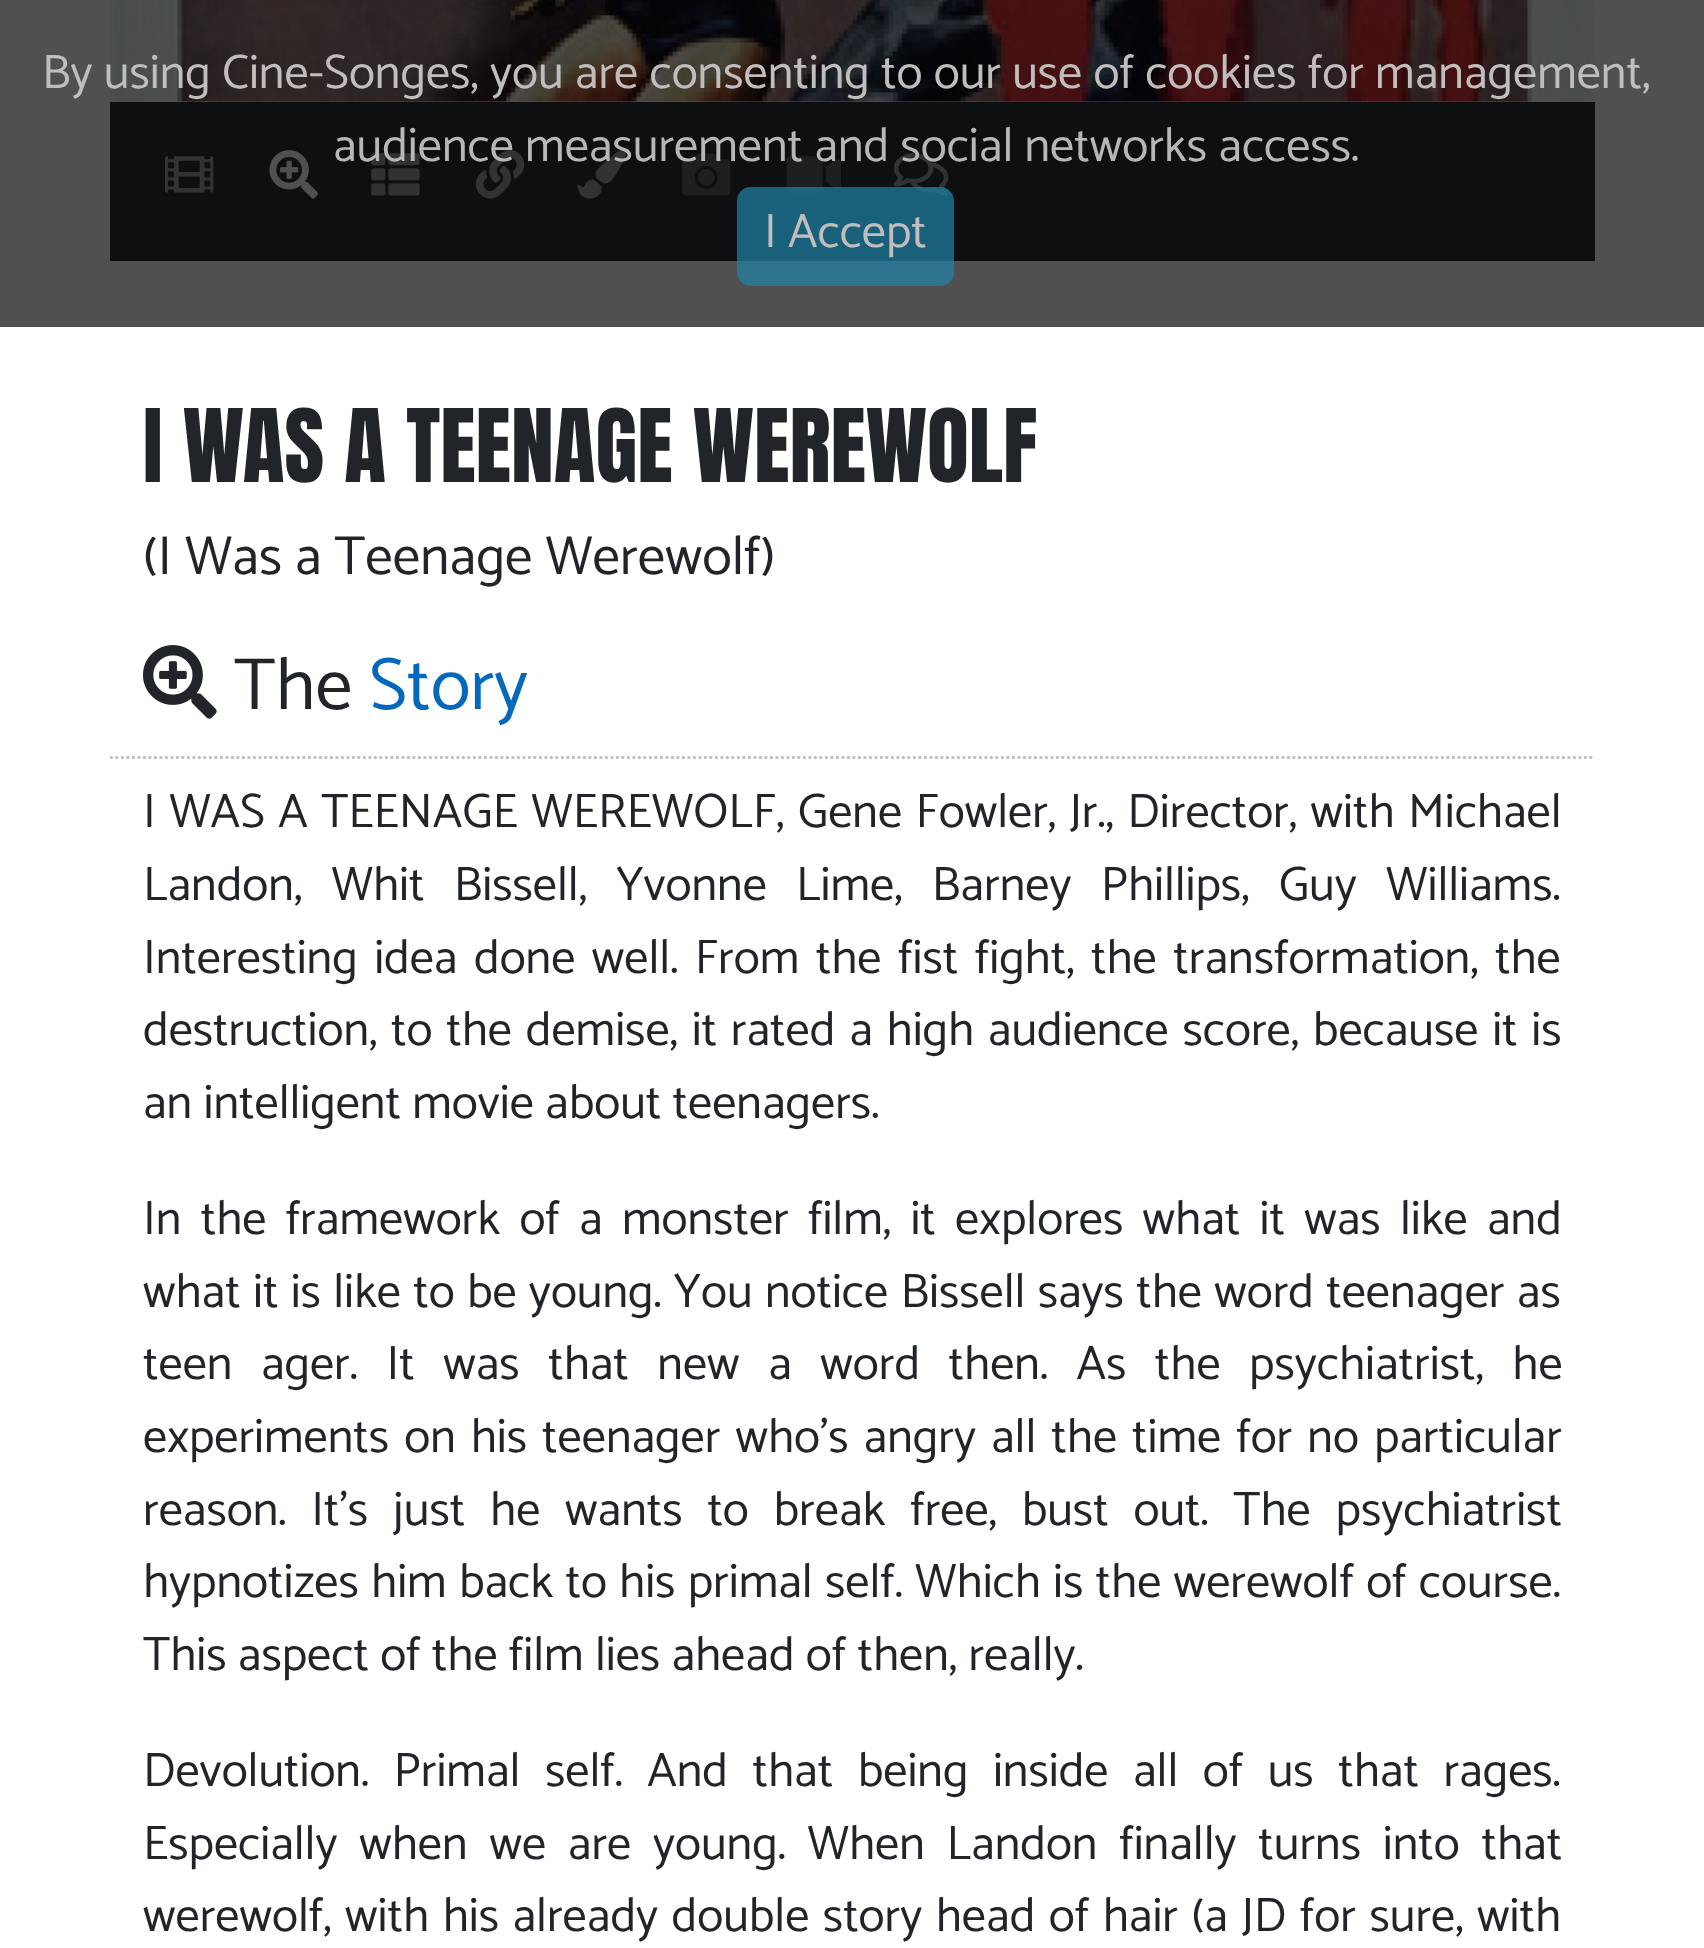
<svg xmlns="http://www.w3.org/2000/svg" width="1704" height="1948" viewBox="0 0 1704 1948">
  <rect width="100%" height="100%" fill="rgb(255,255,255)"/>
  <rect x="0" y="0" width="1704" height="327" fill="rgb(80,80,80)"/>
  <image x="110" y="0" width="1485" height="102" href="pic1.png"/>
  <text x="42" y="88" font-family="Catamaran" font-size="48.4" font-weight="100" fill="rgb(193,189,189)">By using Cine-Songes, you are consenting to our use of cookies for management,</text>
  <rect x="110" y="102" width="1485" height="159" fill="rgb(13,15,16)"/>
  <image x="371" y="153" width="49" height="43" href="pic4.png"/>
  <image x="475" y="150" width="50" height="49" href="pic5.png"/>
  <image x="577" y="150" width="49" height="49" href="pic6.png"/>
  <image x="682" y="153" width="49" height="43" href="pic7.png"/>
  <image x="786" y="156" width="55" height="37" href="pic8.png"/>
  <image x="893" y="153" width="56" height="43" href="pic9.png"/>
  <text x="333" y="161" font-family="Catamaran" font-size="48.4" font-weight="100" fill="rgb(183,183,184)">audience measurement and social networks access.</text>
  <rect x="737" y="187" width="217" height="99" rx="14" fill="rgba(31,131,168,0.7)"/>
  <text x="764" y="247" font-family="Catamaran" font-size="48.4" font-weight="100" fill="rgb(193,189,189)">I Accept</text>
  <image x="165" y="156" width="49" height="37" href="pic2.png"/>
  <image x="269" y="150" width="49" height="49" href="pic3.png"/>
  <text x="143" y="482" font-family="Anton" font-size="86" fill="rgb(33,37,41)">I WAS A TEENAGE WEREWOLF</text>
  <text x="143" y="574" font-family="Catamaran" font-size="55" font-weight="100" fill="rgb(33,37,41)">(I Was a Teenage Werewolf)</text>
  <path d="M110 757.5H1595" fill="none" stroke="rgb(192,192,192)" stroke-width="2.8" stroke-dasharray="2.75 2.75"/>
  <image x="143" y="645" width="74" height="74" href="pic10.png"/>
  <text x="234" y="709" font-family="Catamaran" font-size="74" font-weight="100" fill="rgb(33,37,41)">The</text>
  <text x="369" y="709" font-family="Catamaran" font-size="74" font-weight="100" fill="rgb(4,104,189)">Story</text>
  <g font-family="Catamaran" font-size="48.4" font-weight="100" fill="rgb(33,37,41)">
    <text>
      <tspan x="143" y="827" word-spacing="2.1">I WAS A TEENAGE WEREWOLF, Gene Fowler, Jr., Director, with Michael</tspan>
      <tspan x="143" y="900" word-spacing="18">Landon, Whit Bissell, Yvonne Lime, Barney Phillips, Guy Williams.</tspan>
      <tspan x="143" y="973" word-spacing="5.25">Interesting idea done well. From the fist fight, the transformation, the</tspan>
      <tspan x="143" y="1045" word-spacing="2.5">destruction, to the demise, it rated a high audience score, because it is</tspan>
      <tspan x="143" y="1118">an intelligent movie about teenagers.</tspan>
    </text>
    <text>
      <tspan x="143" y="1234" word-spacing="8">In the framework of a monster film, it explores what it was like and</tspan>
      <tspan x="143" y="1307" word-spacing="1">what it is like to be young. You notice Bissell says the word teenager as</tspan>
      <tspan x="143" y="1379" word-spacing="17.25">teen ager. It was that new a word then. As the psychiatrist, he</tspan>
      <tspan x="143" y="1452" word-spacing="3.75">experiments on his teenager who's angry all the time for no particular</tspan>
      <tspan x="143" y="1525" word-spacing="13.5">reason. It's just he wants to break free, bust out. The psychiatrist</tspan>
      <tspan x="143" y="1597" word-spacing="1">hypnotizes him back to his primal self. Which is the werewolf of course.</tspan>
      <tspan x="143" y="1670">This aspect of the film lies ahead of then, really.</tspan>
    </text>
    <text>
      <tspan x="143" y="1786" word-spacing="13.25">Devolution. Primal self. And that being inside all of us that rages.</tspan>
      <tspan x="143" y="1859" word-spacing="10.5">Especially when we are young. When Landon finally turns into that</tspan>
      <tspan x="143" y="1931" word-spacing="2.25">werewolf, with his already double story head of hair (a JD for sure, with</tspan>
    </text>
  </g>
</svg>
